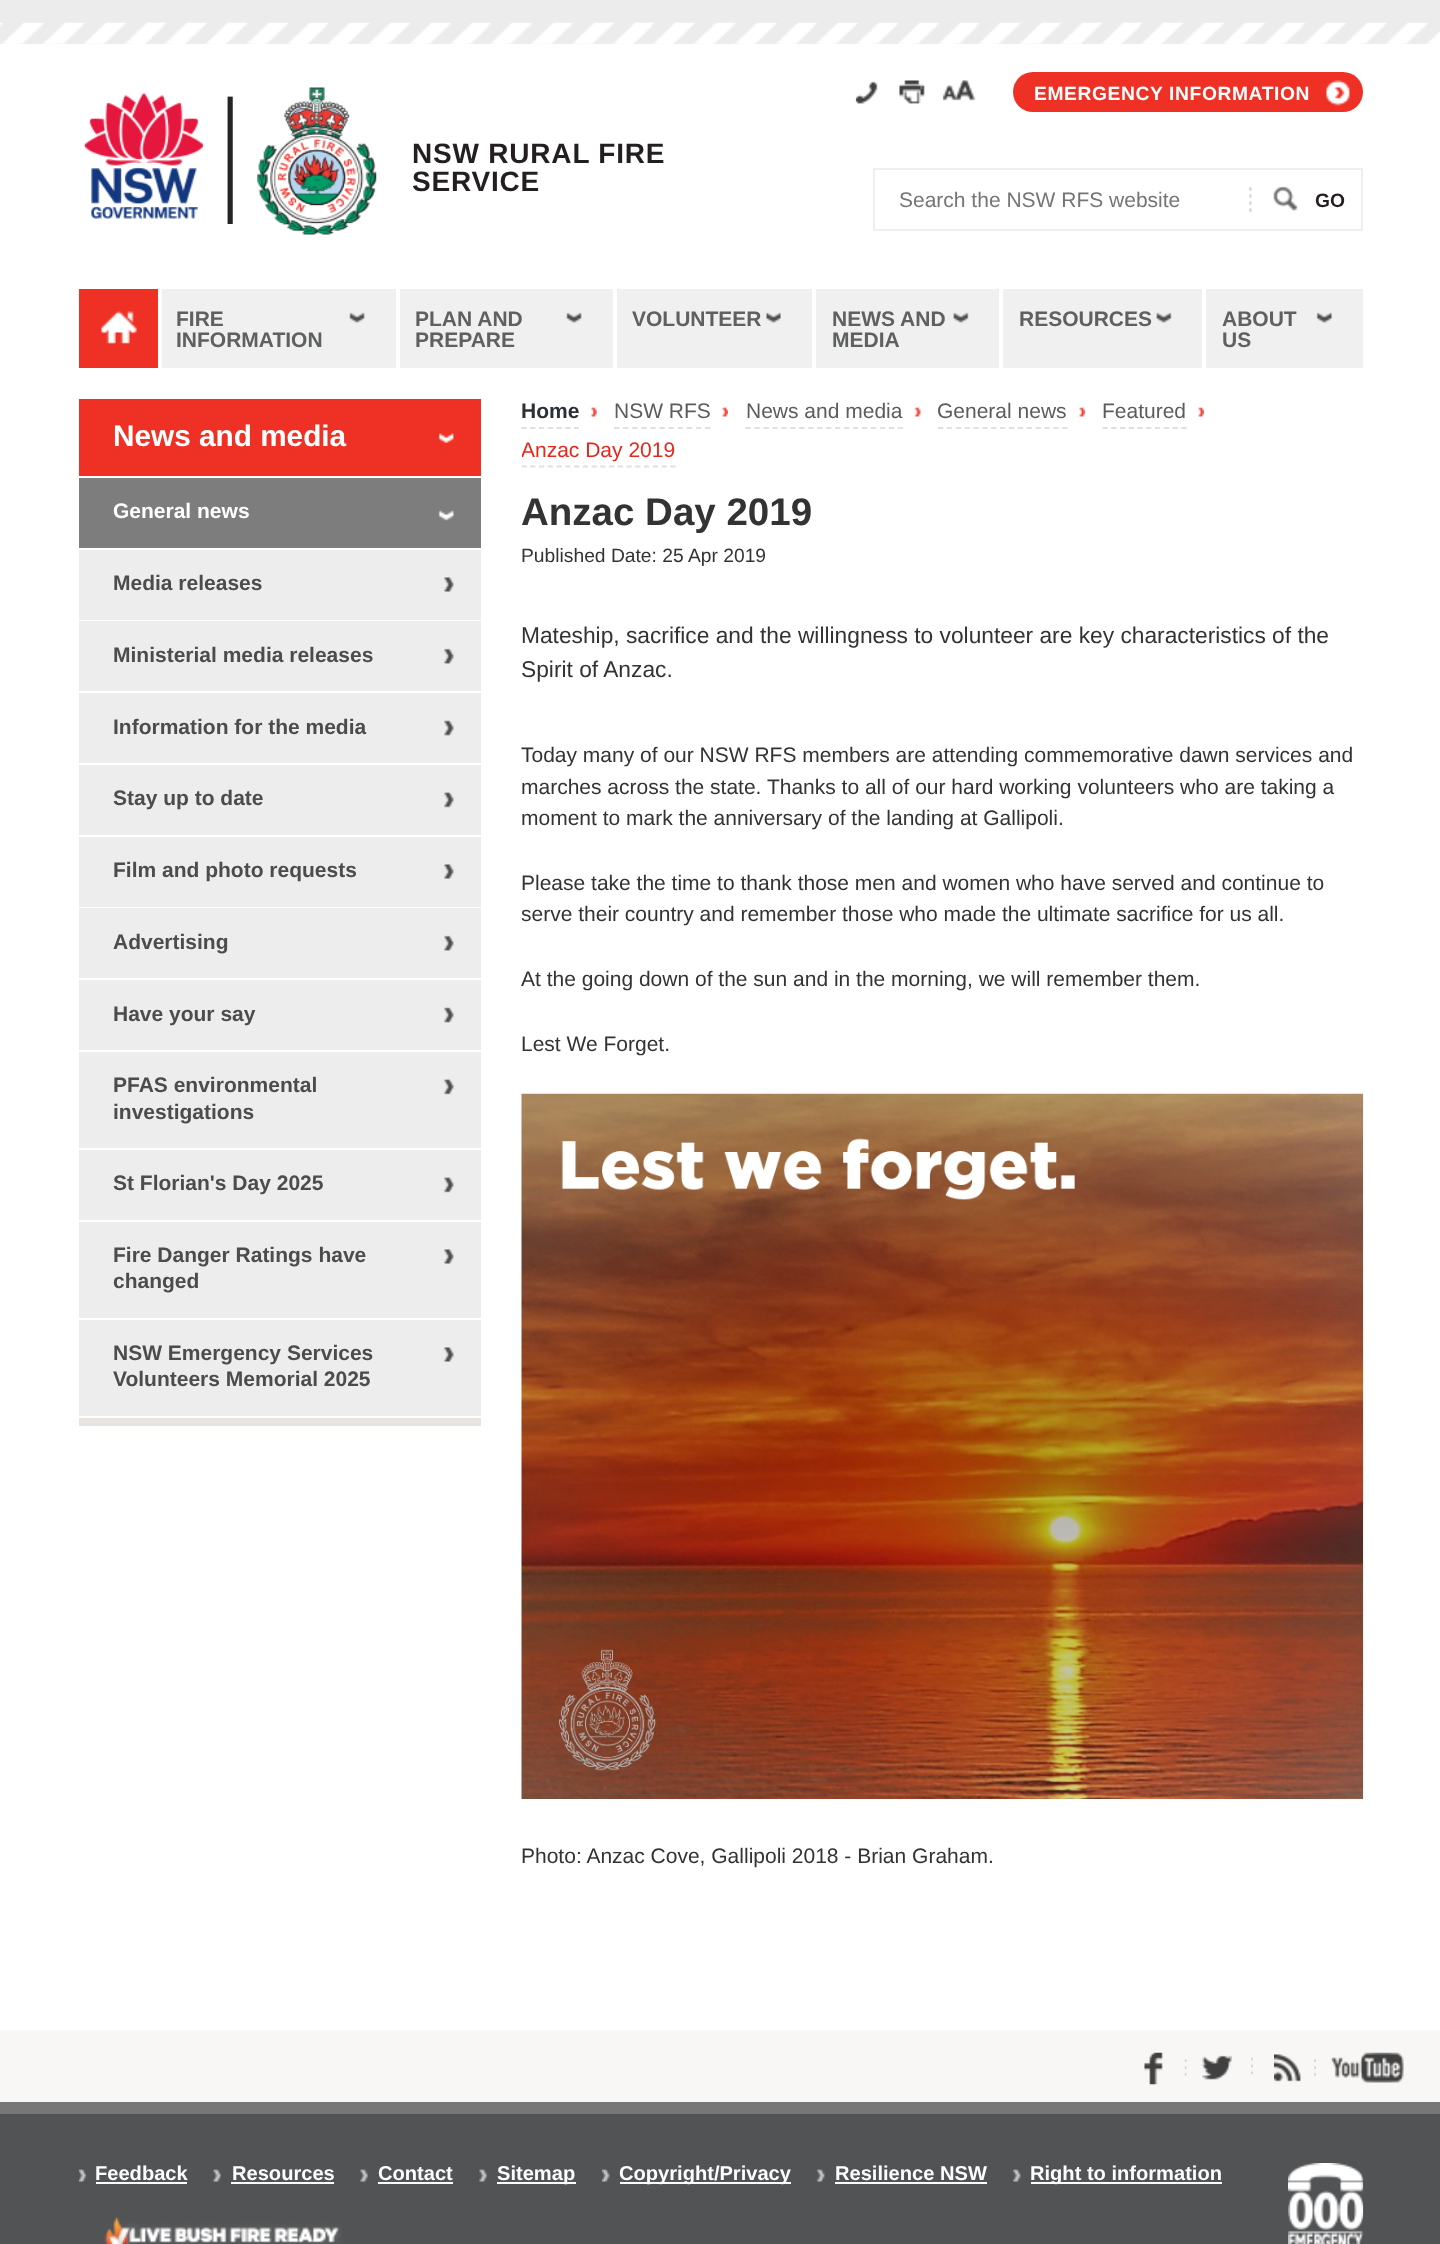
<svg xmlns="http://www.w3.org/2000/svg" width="1440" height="2244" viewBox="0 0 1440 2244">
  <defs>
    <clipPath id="clip1"><rect x="522" y="399" width="841" height="84"/></clipPath>
  </defs>
  <rect width="100%" height="100%" fill="rgb(255,255,255)"/>
  <rect x="0" y="0" width="1440" height="44" fill="rgb(236,236,236)"/>
  <image x="0" y="22" width="1440" height="22" href="pic1.png"/>
  <image x="84" y="92" width="149" height="132" href="pic2.png"/>
  <image x="257" y="87" width="120" height="148" href="pic3.png"/>
  <g font-family="Liberation Sans" font-size="28" font-weight="bold" letter-spacing="0.8" fill="rgb(35,31,32)">
    <text>
      <tspan x="412" y="163">NSW RURAL FIRE</tspan>
      <tspan x="412" y="191">SERVICE</tspan>
    </text>
  </g>
  <image x="855" y="81" width="23" height="23" href="pic4.png"/>
  <image x="899" y="80" width="26" height="24" href="pic5.png"/>
  <image x="943" y="80" width="33" height="21" href="pic6.png"/>
  <rect x="1013" y="72" width="350" height="40" rx="20" fill="rgb(238,49,36)"/>
  <image x="1326" y="80" width="24" height="26" href="pic7.png"/>
  <text x="1034" y="100" font-family="Liberation Sans" font-size="19.25" font-weight="bold" letter-spacing="0.6" fill="rgb(255,255,255)">EMERGENCY INFORMATION</text>
  <rect x="874" y="169" width="488" height="61" fill="none" stroke="rgb(239,239,239)" stroke-width="2"/>
  <text x="899" y="207" font-family="Liberation Sans" font-size="21" fill="rgb(117,117,117)">Search the NSW RFS website</text>
  <image x="1249" y="186" width="49" height="27" href="pic8.png"/>
  <text x="1315" y="207" font-family="Liberation Sans" font-size="19.25" font-weight="bold" fill="rgb(35,31,32)">GO</text>
  <rect x="79" y="289" width="79" height="79" fill="rgb(238,49,36)"/>
  <image x="101" y="311" width="36" height="33" href="pic9.png"/>
  <rect x="162" y="289" width="234" height="79" fill="rgb(240,240,240)"/>
  <image x="349" y="312" width="16" height="11" href="pic10.png"/>
  <g font-family="Liberation Sans" font-size="21" font-weight="bold" fill="rgb(95,96,98)">
    <text>
      <tspan x="176" y="326">FIRE</tspan>
      <tspan x="176" y="347">INFORMATION</tspan>
    </text>
  </g>
  <rect x="400" y="289" width="213" height="79" fill="rgb(240,240,240)"/>
  <image x="566" y="312" width="16" height="11" href="pic10.png"/>
  <g font-family="Liberation Sans" font-size="21" font-weight="bold" fill="rgb(95,96,98)">
    <text>
      <tspan x="415" y="326">PLAN AND</tspan>
      <tspan x="415" y="347">PREPARE</tspan>
    </text>
  </g>
  <rect x="617" y="289" width="195" height="79" fill="rgb(240,240,240)"/>
  <image x="766" y="312" width="15" height="11" href="pic11.png"/>
  <text x="632" y="326" font-family="Liberation Sans" font-size="21" font-weight="bold" fill="rgb(95,96,98)">VOLUNTEER</text>
  <rect x="816" y="289" width="183" height="79" fill="rgb(240,240,240)"/>
  <image x="953" y="312" width="16" height="11" href="pic12.png"/>
  <g font-family="Liberation Sans" font-size="21" font-weight="bold" fill="rgb(95,96,98)">
    <text>
      <tspan x="832" y="326">NEWS AND</tspan>
      <tspan x="832" y="347">MEDIA</tspan>
    </text>
  </g>
  <rect x="1003" y="289" width="199" height="79" fill="rgb(240,240,240)"/>
  <image x="1156" y="312" width="16" height="11" href="pic12.png"/>
  <text x="1019" y="326" font-family="Liberation Sans" font-size="21" font-weight="bold" fill="rgb(95,96,98)">RESOURCES</text>
  <rect x="1206" y="289" width="157" height="79" fill="rgb(240,240,240)"/>
  <image x="1316" y="312" width="16" height="11" href="pic13.png"/>
  <g font-family="Liberation Sans" font-size="21" font-weight="bold" fill="rgb(95,96,98)">
    <text>
      <tspan x="1222" y="326">ABOUT</tspan>
      <tspan x="1222" y="347">US</tspan>
    </text>
  </g>
  <rect x="79" y="1418" width="402" height="8" fill="rgb(231,228,224)"/>
  <rect x="79" y="399" width="402" height="77" fill="rgb(238,49,36)"/>
  <image x="438" y="433" width="16" height="10" href="pic14.png"/>
  <text x="113" y="446" font-family="Liberation Sans" font-size="29.75" font-weight="bold" fill="rgb(255,255,255)">News and media</text>
  <rect x="79" y="478" width="402" height="70" fill="rgb(125,125,125)"/>
  <image x="438" y="510" width="16" height="11" href="pic15.png"/>
  <text x="113" y="518" font-family="Liberation Sans" font-size="21" font-weight="bold" fill="rgb(255,255,255)">General news</text>
  <rect x="79" y="550" width="402" height="70" fill="rgb(237,237,237)"/>
  <image x="444" y="577" width="10" height="15" href="pic16.png"/>
  <text x="113" y="590" font-family="Liberation Sans" font-size="21" font-weight="bold" fill="rgb(76,76,76)">Media releases</text>
  <rect x="79" y="621" width="402" height="70" fill="rgb(237,237,237)"/>
  <image x="444" y="648" width="10" height="16" href="pic17.png"/>
  <text x="113" y="662" font-family="Liberation Sans" font-size="21" font-weight="bold" fill="rgb(76,76,76)">Ministerial media releases</text>
  <rect x="79" y="693" width="402" height="70" fill="rgb(237,237,237)"/>
  <image x="444" y="720" width="10" height="16" href="pic18.png"/>
  <text x="113" y="734" font-family="Liberation Sans" font-size="21" font-weight="bold" fill="rgb(76,76,76)">Information for the media</text>
  <rect x="79" y="765" width="402" height="70" fill="rgb(237,237,237)"/>
  <image x="444" y="792" width="10" height="16" href="pic19.png"/>
  <text x="113" y="805" font-family="Liberation Sans" font-size="21" font-weight="bold" fill="rgb(76,76,76)">Stay up to date</text>
  <rect x="79" y="837" width="402" height="70" fill="rgb(237,237,237)"/>
  <image x="444" y="864" width="10" height="15" href="pic16.png"/>
  <text x="113" y="877" font-family="Liberation Sans" font-size="21" font-weight="bold" fill="rgb(76,76,76)">Film and photo requests</text>
  <rect x="79" y="908" width="402" height="70" fill="rgb(237,237,237)"/>
  <image x="444" y="935" width="10" height="16" href="pic17.png"/>
  <text x="113" y="949" font-family="Liberation Sans" font-size="21" font-weight="bold" fill="rgb(76,76,76)">Advertising</text>
  <rect x="79" y="980" width="402" height="70" fill="rgb(237,237,237)"/>
  <image x="444" y="1007" width="10" height="16" href="pic18.png"/>
  <text x="113" y="1021" font-family="Liberation Sans" font-size="21" font-weight="bold" fill="rgb(76,76,76)">Have your say</text>
  <rect x="79" y="1052" width="402" height="96" fill="rgb(237,237,237)"/>
  <image x="444" y="1079" width="10" height="16" href="pic19.png"/>
  <g font-family="Liberation Sans" font-size="21" font-weight="bold" fill="rgb(76,76,76)">
    <text>
      <tspan x="113" y="1092">PFAS environmental</tspan>
      <tspan x="113" y="1119">investigations</tspan>
    </text>
  </g>
  <rect x="79" y="1150" width="402" height="70" fill="rgb(237,237,237)"/>
  <image x="444" y="1177" width="10" height="16" href="pic19.png"/>
  <text x="113" y="1190" font-family="Liberation Sans" font-size="21" font-weight="bold" fill="rgb(76,76,76)">St Florian's Day 2025</text>
  <rect x="79" y="1222" width="402" height="96" fill="rgb(237,237,237)"/>
  <image x="444" y="1249" width="10" height="15" href="pic16.png"/>
  <g font-family="Liberation Sans" font-size="21" font-weight="bold" fill="rgb(76,76,76)">
    <text>
      <tspan x="113" y="1262">Fire Danger Ratings have</tspan>
      <tspan x="113" y="1288">changed</tspan>
    </text>
  </g>
  <rect x="79" y="1320" width="402" height="96" fill="rgb(237,237,237)"/>
  <image x="444" y="1347" width="10" height="15" href="pic16.png"/>
  <g font-family="Liberation Sans" font-size="21" font-weight="bold" fill="rgb(76,76,76)">
    <text>
      <tspan x="113" y="1360">NSW Emergency Services</tspan>
      <tspan x="113" y="1386">Volunteers Memorial 2025</tspan>
    </text>
  </g>
  <image x="591" y="407" width="6" height="10" href="pic20.png"/>
  <path d="M521.5 428H579" fill="none" stroke="rgb(224,224,224)" stroke-width="1.8" stroke-dasharray="5.25 3.5"/>
  <text x="521" y="418" font-family="Liberation Sans" font-size="21" font-weight="bold" fill="rgb(43,48,53)">Home</text>
  <image x="722" y="407" width="6" height="10" href="pic21.png"/>
  <path d="M614 428H710.5" fill="none" stroke="rgb(224,224,224)" stroke-width="1.8" stroke-dasharray="5.25 3.85"/>
  <text x="614" y="418" font-family="Liberation Sans" font-size="21" fill="rgb(92,92,92)">NSW RFS</text>
  <image x="914" y="407" width="7" height="10" href="pic22.png"/>
  <path d="M745.5 428H903" fill="none" stroke="rgb(224,224,224)" stroke-width="1.8" stroke-dasharray="5.25 3.71"/>
  <text x="746" y="418" font-family="Liberation Sans" font-size="21" fill="rgb(92,92,92)">News and media</text>
  <image x="1079" y="407" width="6" height="10" href="pic21.png"/>
  <path d="M938 428H1067.5" fill="none" stroke="rgb(224,224,224)" stroke-width="1.8" stroke-dasharray="5.25 3.62"/>
  <text x="937" y="418" font-family="Liberation Sans" font-size="21" fill="rgb(92,92,92)">General news</text>
  <image x="1198" y="407" width="6" height="10" href="pic21.png"/>
  <path d="M1102.5 428H1186.5" fill="none" stroke="rgb(224,224,224)" stroke-width="1.8" stroke-dasharray="5.25 3.5"/>
  <text x="1102" y="418" font-family="Liberation Sans" font-size="21" fill="rgb(92,92,92)">Featured</text>
  <g clip-path="url(#clip1)">
    <path d="M521.5 466.5H675.5" fill="none" stroke="rgb(224,224,224)" stroke-width="1.8" stroke-dasharray="5.25 3.5"/>
    <text x="521" y="457" font-family="Liberation Sans" font-size="21" fill="rgb(229,40,27)">Anzac Day 2019</text>
  </g>
  <text x="521" y="525" font-family="Liberation Sans" font-size="38.5" font-weight="bold" fill="rgb(51,51,51)">Anzac Day 2019</text>
  <text x="521" y="562" font-family="Liberation Sans" font-size="19.25" fill="rgb(51,51,51)">Published Date: 25 Apr 2019</text>
  <g font-family="Liberation Sans" font-size="22.75" fill="rgb(51,51,51)">
    <text>
      <tspan x="521" y="643">Mateship, sacrifice and the willingness to volunteer are key characteristics of the</tspan>
      <tspan x="521" y="677">Spirit of Anzac.</tspan>
    </text>
  </g>
  <g font-family="Liberation Sans" font-size="21" fill="rgb(51,51,51)">
    <text>
      <tspan x="521" y="762">Today many of our NSW RFS members are attending commemorative dawn services and</tspan>
      <tspan x="521" y="794">marches across the state. Thanks to all of our hard working volunteers who are taking a</tspan>
      <tspan x="521" y="825">moment to mark the anniversary of the landing at Gallipoli.</tspan>
    </text>
    <text>
      <tspan x="521" y="890">Please take the time to thank those men and women who have served and continue to</tspan>
      <tspan x="521" y="921">serve their country and remember those who made the ultimate sacrifice for us all.</tspan>
    </text>
    <text x="521" y="986">At the going down of the sun and in the morning, we will remember them.</text>
    <text x="521" y="1051">Lest We Forget.</text>
  </g>
  <image x="521" y="1093" width="843" height="706" href="pic23.png"/>
  <text x="521" y="1863" font-family="Liberation Sans" font-size="21" fill="rgb(51,51,51)">Photo: Anzac Cove, Gallipoli 2018 - Brian Graham.</text>
  <rect x="0" y="2030" width="1440" height="72" fill="rgb(248,247,245)"/>
  <image x="1144" y="2052" width="19" height="33" href="pic24.png"/>
  <image x="1184" y="2059" width="3" height="17" href="pic25.png"/>
  <image x="1202" y="2055" width="30" height="25" href="pic26.png"/>
  <image x="1251" y="2057" width="2" height="18" href="pic27.png"/>
  <image x="1274" y="2054" width="27" height="28" href="pic28.png"/>
  <image x="1314" y="2059" width="2" height="17" href="pic29.png"/>
  <image x="1331" y="2052" width="73" height="31" href="pic30.png"/>
  <rect x="0" y="2114" width="1440" height="130" fill="rgb(82,83,85)"/>
  <rect x="0" y="2102" width="1440" height="12" fill="rgb(120,119,119)"/>
  <image x="78" y="2169" width="9" height="13" href="pic31.png"/>
  <text x="95" y="2180" font-family="Liberation Sans" font-size="20.1" font-weight="bold" fill="rgb(255,255,255)">Feedback</text>
  <rect x="96" y="2182" width="91" height="2" fill="rgb(255,255,255)"/>
  <image x="213" y="2169" width="8" height="13" href="pic32.png"/>
  <text x="232" y="2180" font-family="Liberation Sans" font-size="20.1" font-weight="bold" fill="rgb(255,255,255)">Resources</text>
  <rect x="231" y="2182" width="103" height="2" fill="rgb(255,255,255)"/>
  <image x="360" y="2169" width="8" height="13" href="pic32.png"/>
  <text x="378" y="2180" font-family="Liberation Sans" font-size="20.1" font-weight="bold" fill="rgb(255,255,255)">Contact</text>
  <rect x="378" y="2182" width="75" height="2" fill="rgb(255,255,255)"/>
  <image x="479" y="2169" width="8" height="13" href="pic32.png"/>
  <rect x="497" y="2182" width="79" height="2" fill="rgb(255,255,255)"/>
  <text x="497" y="2180" font-family="Liberation Sans" font-size="20.1" font-weight="bold" fill="rgb(255,255,255)">Sitemap</text>
  <image x="602" y="2169" width="8" height="13" href="pic33.png"/>
  <rect x="620" y="2182" width="171" height="2" fill="rgb(255,255,255)"/>
  <text x="619" y="2180" font-family="Liberation Sans" font-size="20.1" font-weight="bold" fill="rgb(255,255,255)">Copyright/Privacy</text>
  <image x="817" y="2169" width="8" height="13" href="pic34.png"/>
  <text x="835" y="2180" font-family="Liberation Sans" font-size="20.1" font-weight="bold" fill="rgb(255,255,255)">Resilience NSW</text>
  <rect x="835" y="2182" width="152" height="2" fill="rgb(255,255,255)"/>
  <image x="1013" y="2169" width="8" height="13" href="pic34.png"/>
  <rect x="1031" y="2182" width="191" height="2" fill="rgb(255,255,255)"/>
  <text x="1030" y="2180" font-family="Liberation Sans" font-size="20.1" font-weight="bold" fill="rgb(255,255,255)">Right to information</text>
  <image x="1288" y="2163" width="76" height="81" href="pic35.png"/>
  <image x="104" y="2217" width="238" height="27" href="pic36.png"/>
</svg>
